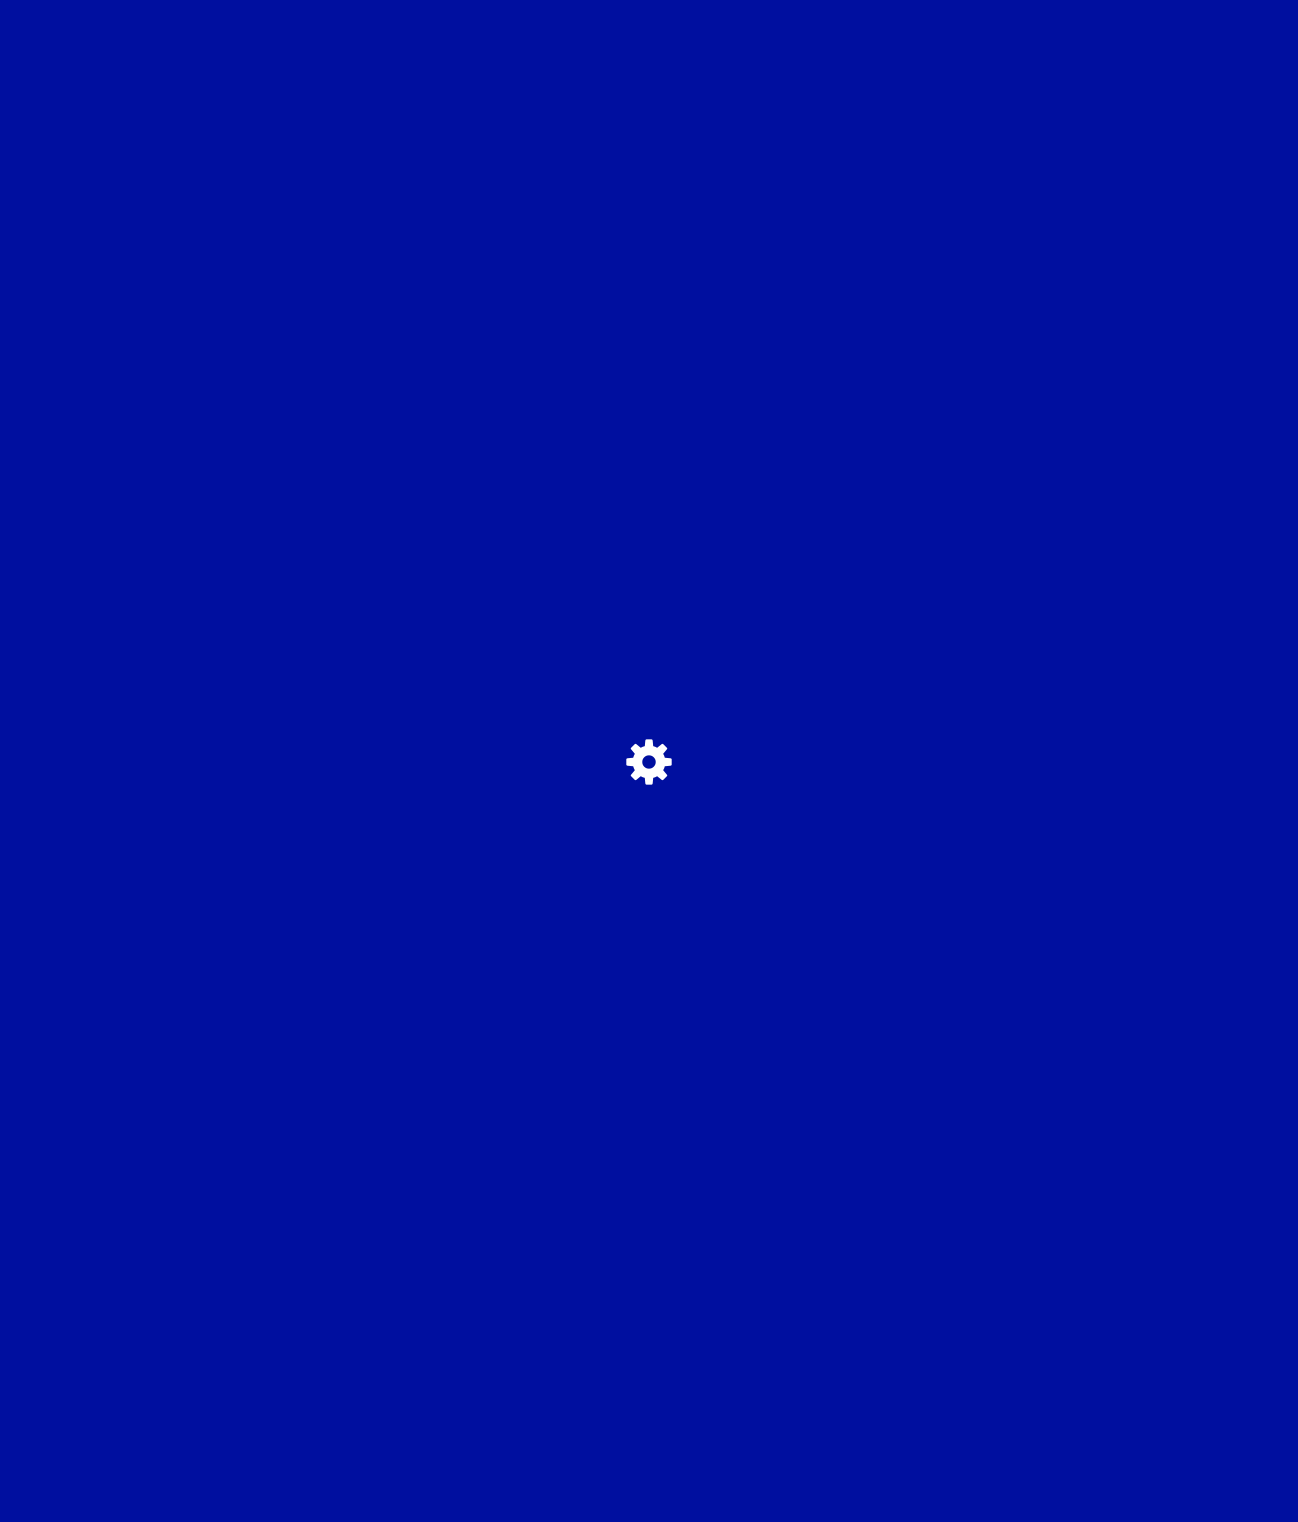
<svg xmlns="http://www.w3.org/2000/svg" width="1298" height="1522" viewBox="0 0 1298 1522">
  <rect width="100%" height="100%" fill="rgb(0,15,159)"/>
  <image x="626" y="739" width="46" height="46" href="pic1.png"/>
</svg>
